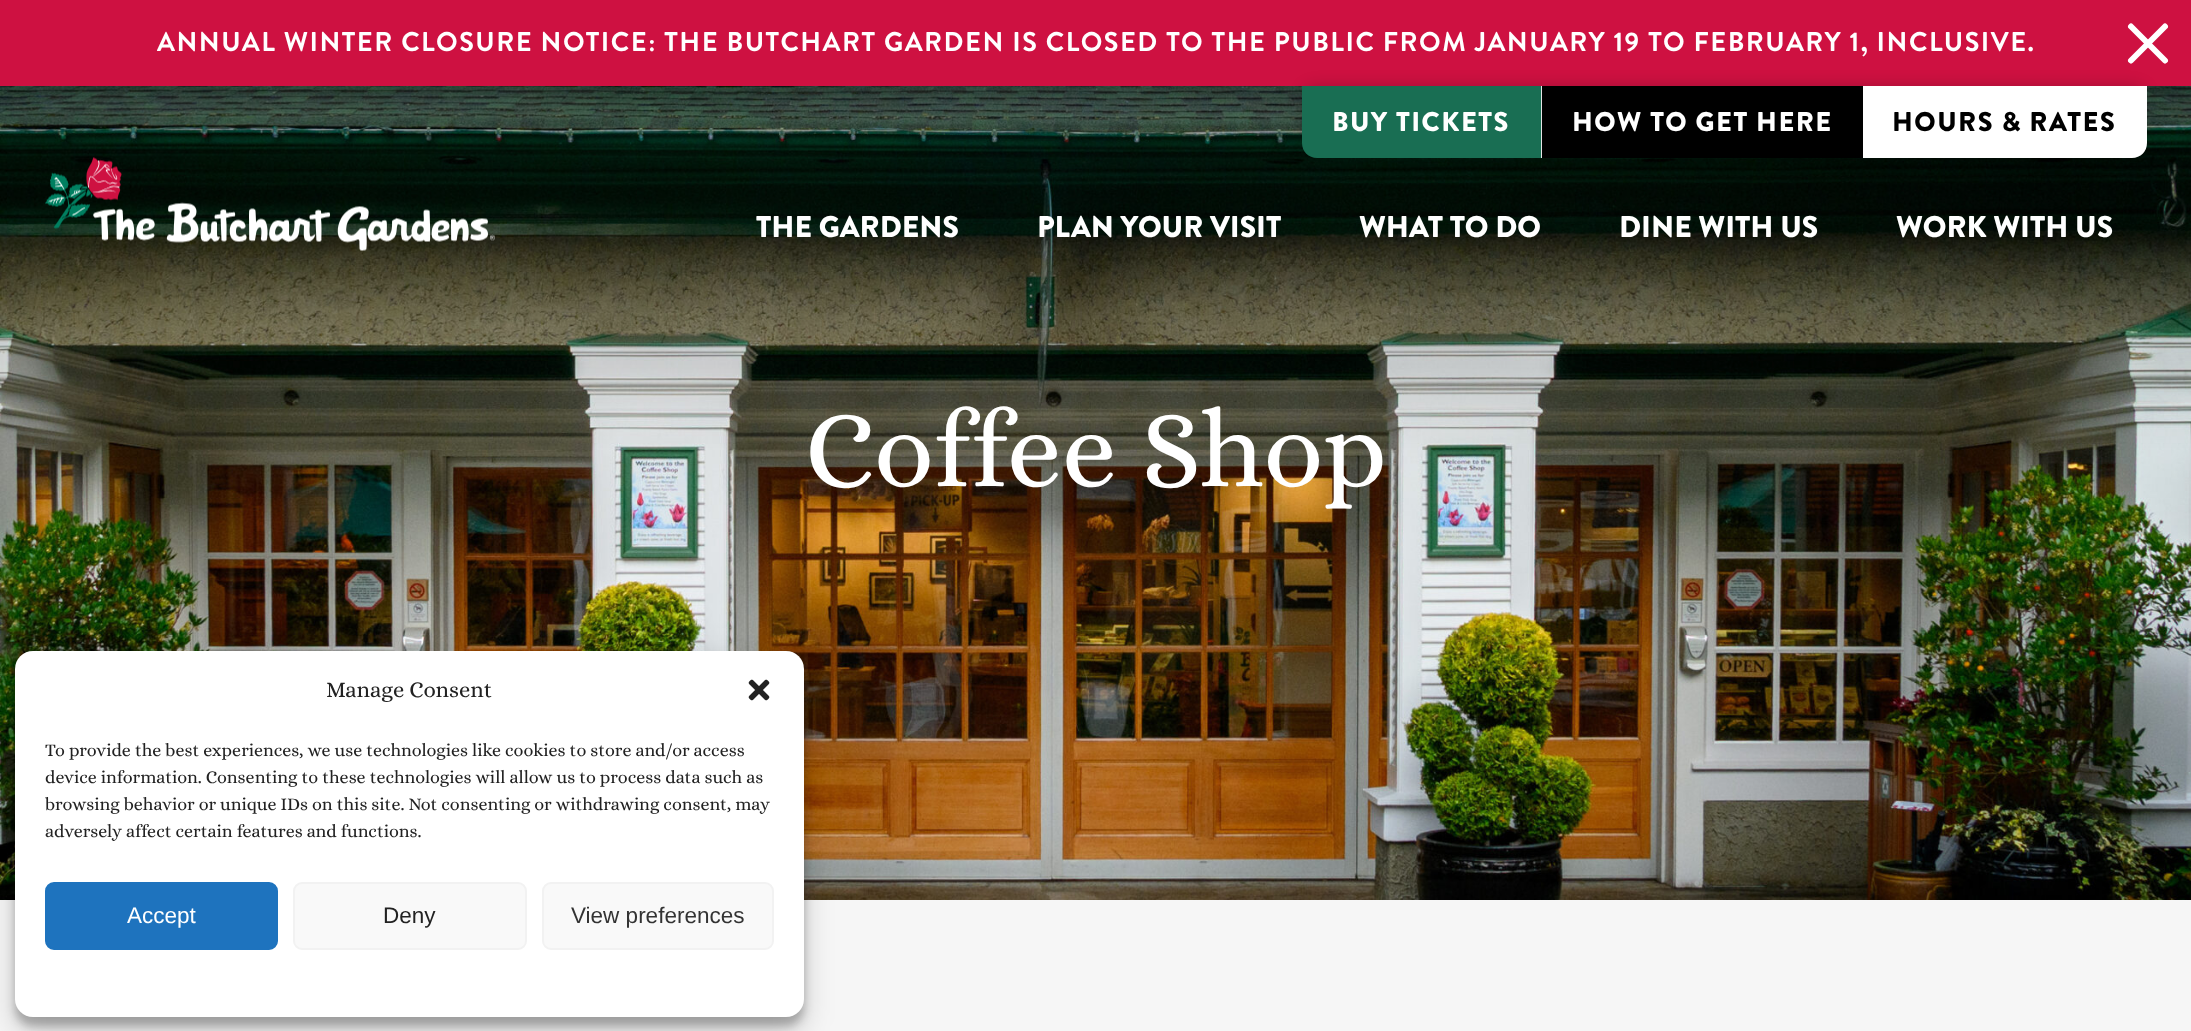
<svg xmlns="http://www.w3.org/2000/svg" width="2191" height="1031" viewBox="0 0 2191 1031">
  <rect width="100%" height="100%" fill="rgb(246,246,246)"/>
  <rect x="0" y="0" width="2191" height="86" fill="rgb(206,17,65)"/>
  <text x="157" y="51" font-family="Brandon Grotesque" font-size="27" font-weight="bold" letter-spacing="1.5" fill="rgb(255,255,255)">ANNUAL WINTER CLOSURE NOTICE: THE BUTCHART GARDEN IS CLOSED TO THE PUBLIC FROM JANUARY 19 TO FEBRUARY 1, INCLUSIVE.</text>
  <path d="M2131 60.5L2165 26.5M2165 60.5L2131 26.5" fill="none" stroke="rgb(255,255,255)" stroke-width="5.9" stroke-linecap="round"/>
  <image x="0" y="86" width="2191" height="814" href="pic2.png"/>
  <rect x="1302" y="86" width="845" height="72" rx="15" fill="rgba(0,0,0,0.2)" filter="blur(7.5px)"/>
  <rect x="1541" y="86" width="1" height="72" fill="rgb(229,229,229)"/>
  <path d="M1302 86H1541V158H1317C1308.5 158 1302 151.5 1302 143Z" fill="rgb(25,110,83)"/>
  <text x="1332" y="131" font-family="Brandon Grotesque" font-size="27" font-weight="900" letter-spacing="1.5" fill="rgb(255,255,255)">BUY TICKETS</text>
  <rect x="1542" y="86" width="321" height="72" fill="rgb(0,0,0)"/>
  <text x="1572" y="131" font-family="Brandon Grotesque" font-size="27" font-weight="900" letter-spacing="1.5" fill="rgb(255,255,255)">HOW TO GET HERE</text>
  <path d="M1863 86H2147V143C2147 151.5 2140.5 158 2132 158H1863Z" fill="rgb(255,255,255)"/>
  <text x="1892" y="131" font-family="Brandon Grotesque" font-size="27" font-weight="900" letter-spacing="1.5" fill="rgb(0,0,0)">HOURS &amp; RATES</text>
  <image x="45" y="157" width="450" height="94" href="pic1.png"/>
  <g font-family="Brandon Grotesque" font-size="30" font-weight="900" fill="rgb(255,255,255)">
    <text x="756" y="237">THE GARDENS</text>
    <text x="1037" y="237">PLAN YOUR VISIT</text>
    <text x="1359" y="237">WHAT TO DO</text>
    <text x="1619" y="237">DINE WITH US</text>
    <text x="1896" y="237">WORK WITH US</text>
  </g>
  <text x="805" y="486" font-family="Alice" font-size="109.5" fill="rgb(255,255,255)">Coffee Shop</text>
  <rect x="15" y="660" width="789" height="366" rx="18" fill="rgba(0,0,0,0.23)" filter="blur(4.5px)"/>
  <rect x="15" y="666" width="789" height="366" rx="18" fill="rgba(0,0,0,0.19)" filter="blur(15px)"/>
  <rect x="15" y="651" width="789" height="366" rx="18" fill="rgb(255,255,255)"/>
  <text x="326" y="697" font-family="Alice" font-size="22.5" fill="rgb(34,34,34)">Manage Consent</text>
  <image x="748" y="679" width="22" height="22" href="pic3.png"/>
  <g font-family="Alice" font-size="18" fill="rgb(34,34,34)">
    <text>
      <tspan x="45" y="756">To provide the best experiences, we use technologies like cookies to store and/or access</tspan>
      <tspan x="45" y="783">device information. Consenting to these technologies will allow us to process data such as</tspan>
      <tspan x="45" y="810">browsing behavior or unique IDs on this site. Not consenting or withdrawing consent, may</tspan>
      <tspan x="45" y="837">adversely affect certain features and functions.</tspan>
    </text>
  </g>
  <rect x="46" y="883" width="231" height="66" rx="8" fill="rgb(30,115,190)" stroke="rgb(30,115,190)" stroke-width="2"/>
  <text x="127" y="923" font-family="Liberation Sans" font-size="22.5" fill="rgb(255,255,255)">Accept</text>
  <rect x="294" y="883" width="232" height="66" rx="8" fill="rgb(249,249,249)" stroke="rgb(242,242,242)" stroke-width="2"/>
  <text x="383" y="923" font-family="Liberation Sans" font-size="22.5" fill="rgb(34,34,34)">Deny</text>
  <rect x="543" y="883" width="230" height="66" rx="8" fill="rgb(249,249,249)" stroke="rgb(242,242,242)" stroke-width="2"/>
  <text x="571" y="923" font-family="Liberation Sans" font-size="22.5" fill="rgb(51,51,51)">View preferences</text>
</svg>
